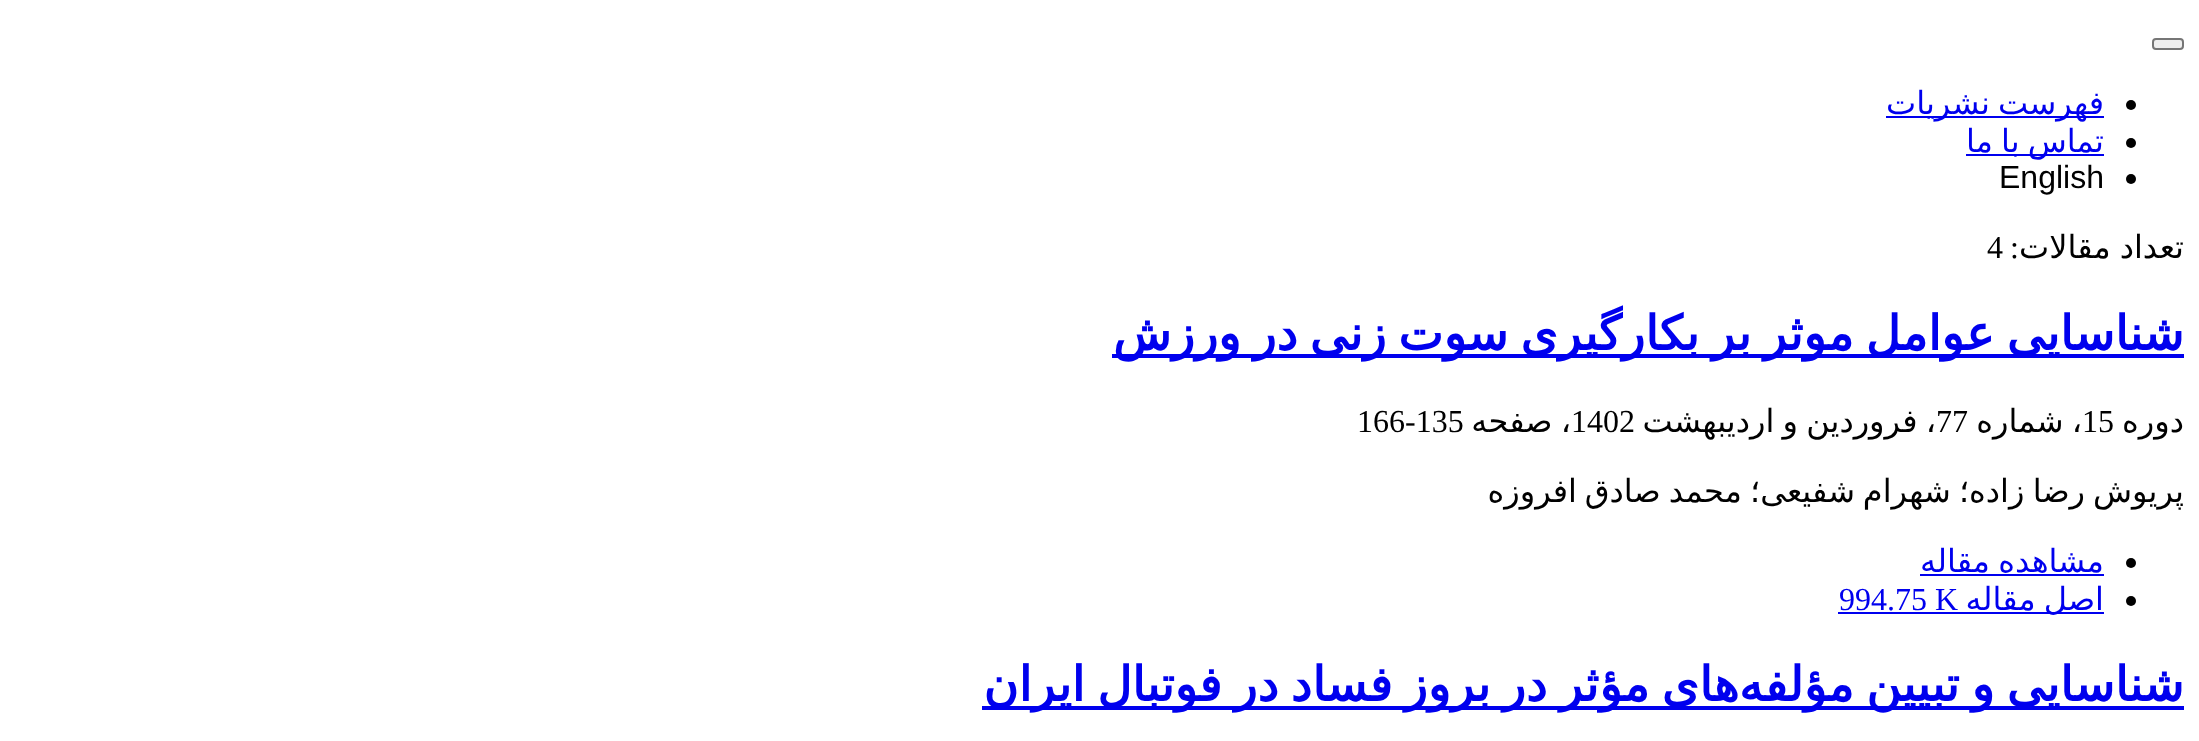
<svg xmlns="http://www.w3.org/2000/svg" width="2199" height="741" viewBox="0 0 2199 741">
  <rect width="100%" height="100%" fill="rgb(255,255,255)"/>
  <rect x="2153" y="39" width="30" height="10" rx="3" fill="rgb(239,239,239)" stroke="rgb(118,118,118)" stroke-width="2"/>
  <circle cx="2131" cy="105" r="5" fill="rgb(0,0,0)"/>
  <rect x="1886" y="116" width="218" height="2" fill="rgb(0,0,238)"/>
  <text x="2104" y="114" word-spacing="-2" font-family="DejaVu Sans" font-size="32" direction="rtl" fill="rgb(0,0,238)">فهرست نشریات</text>
  <circle cx="2131" cy="143" r="5" fill="rgb(0,0,0)"/>
  <rect x="1966" y="154" width="138" height="2" fill="rgb(0,0,238)"/>
  <text x="2104" y="152" word-spacing="-2" font-family="DejaVu Sans" font-size="32" direction="rtl" fill="rgb(0,0,238)">تماس با ما</text>
  <circle cx="2131" cy="179" r="5" fill="rgb(0,0,0)"/>
  <text x="1999" y="188" font-family="Liberation Sans" font-size="32" fill="rgb(0,0,0)">English</text>
  <text x="2184" y="258" word-spacing="-1" font-family="DejaVu Sans" font-size="32" direction="rtl" fill="rgb(0,0,0)">تعداد مقالات</text>
  <text x="2019" y="258" font-family="Liberation Serif" font-size="32" direction="rtl" fill="rgb(0,0,0)">:</text>
  <text x="1987" y="258" font-family="Liberation Serif" font-size="32" fill="rgb(0,0,0)">4</text>
  <rect x="1112" y="354" width="1072" height="4" fill="rgb(0,0,238)"/>
  <text x="2184" y="350" word-spacing="-3.25" font-family="DejaVu Sans" font-size="48" font-weight="bold" direction="rtl" fill="rgb(0,0,238)">شناسایی عوامل موثر بر بکارگیری سوت زنی در ورزش</text>
  <text x="2184" y="432" font-family="DejaVu Sans" font-size="32" direction="rtl" fill="rgb(0,0,0)">دوره</text>
  <text x="2082" y="432" font-family="Liberation Serif" font-size="32" fill="rgb(0,0,0)">15</text>
  <g font-family="DejaVu Sans" font-size="32" direction="rtl" fill="rgb(0,0,0)">
    <text x="2082" y="432" word-spacing="-2">، شماره</text>
    <text x="1936" y="432" word-spacing="-2">، فروردین و اردیبهشت</text>
  </g>
  <g font-family="Liberation Serif" font-size="32" fill="rgb(0,0,0)">
    <text x="1936" y="432">77</text>
    <text x="1571" y="432">1402</text>
  </g>
  <text x="1571" y="432" word-spacing="-2" font-family="DejaVu Sans" font-size="32" direction="rtl" fill="rgb(0,0,0)">، صفحه</text>
  <text x="1357" y="432" font-family="Liberation Serif" font-size="32" fill="rgb(0,0,0)">166-135</text>
  <g font-family="DejaVu Sans" font-size="32" direction="rtl" fill="rgb(0,0,0)">
    <text x="2184" y="502">پریوش</text>
    <text x="2085" y="502" word-spacing="-2">رضا زاده؛ شهرام</text>
    <text x="1855" y="502" word-spacing="-2">شفیعی؛ محمد صادق</text>
    <text x="1577" y="502">افروزه</text>
  </g>
  <circle cx="2131" cy="563" r="5" fill="rgb(0,0,0)"/>
  <text x="2104" y="572" word-spacing="-2" font-family="DejaVu Sans" font-size="32" direction="rtl" fill="rgb(0,0,238)">مشاهده مقاله</text>
  <rect x="1920" y="574" width="184" height="2" fill="rgb(0,0,238)"/>
  <circle cx="2131" cy="601" r="5" fill="rgb(0,0,0)"/>
  <rect x="1838" y="612" width="266" height="2" fill="rgb(0,0,238)"/>
  <text x="2104" y="610" word-spacing="-2" font-family="DejaVu Sans" font-size="32" direction="rtl" fill="rgb(0,0,238)">اصل مقاله</text>
  <text x="1839" y="610" font-family="Liberation Serif" font-size="32" fill="rgb(0,0,238)">994.75 K</text>
  <rect x="982" y="706" width="1202" height="4" fill="rgb(0,0,238)"/>
  <g font-family="DejaVu Sans" font-size="48" font-weight="bold" direction="rtl" fill="rgb(0,0,238)">
    <text x="1739" y="701" word-spacing="-3.25">های مؤثر در بروز فساد در فوتبال ایران</text>
    <text x="2184" y="701" word-spacing="-3.25">شناسایی و تبیین مؤلفه</text>
  </g>
</svg>
